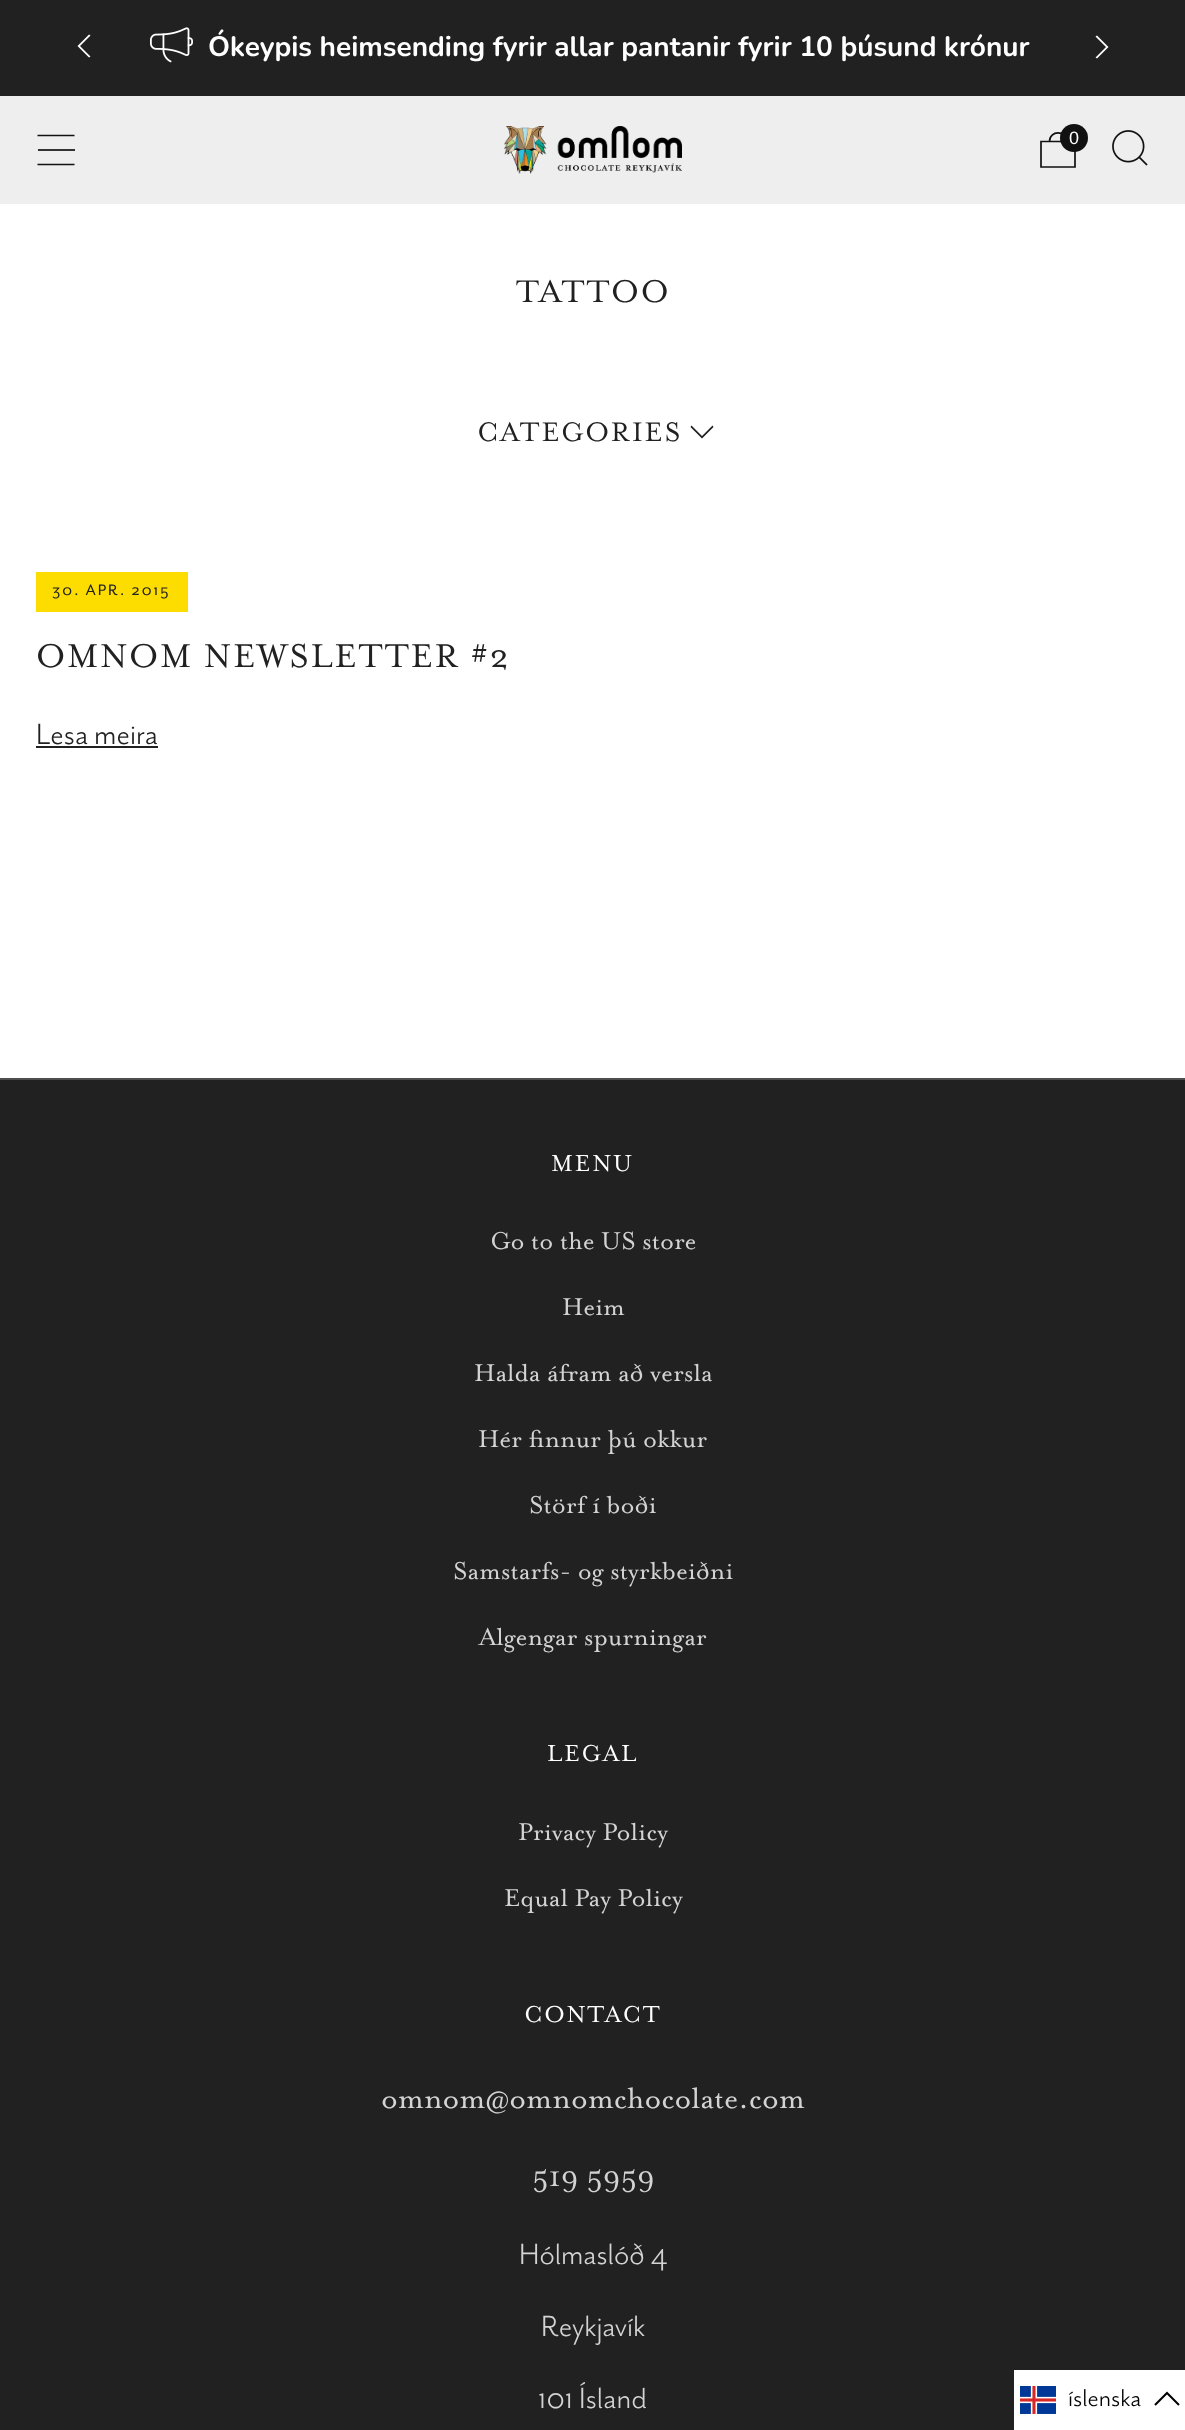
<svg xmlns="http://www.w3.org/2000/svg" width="1185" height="2430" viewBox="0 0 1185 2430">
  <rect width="100%" height="100%" fill="rgb(255,255,255)"/>
  <rect x="0" y="0" width="1185" height="96" fill="rgb(33,33,33)"/>
  <path d="M90.5 56.5L89 57.5L77.5 46L89 34.5L90.5 35.5L80 46Z" fill="rgb(255,255,255)"/>
  <image x="150" y="27" width="43" height="36" href="pic1.png"/>
  <text x="208" y="56" font-family="Nunito" font-size="28" font-weight="bold" fill="rgb(255,255,255)">Ókeypis heimsending fyrir allar pantanir fyrir 10 þúsund krónur</text>
  <path d="M1095.5 57.5L1097 58.5L1108.5 47L1097 35.5L1095.5 36.5L1106 47Z" fill="rgb(255,255,255)"/>
  <rect x="0" y="96" width="1185" height="108" fill="rgb(238,238,238)"/>
  <path d="M37.5 135.5H74.5" fill="none" stroke="rgb(17,17,17)" stroke-width="1.7"/>
  <rect x="38" y="149" width="37" height="2" fill="rgb(50,50,50)"/>
  <path d="M37.5 164.5H74.5" fill="none" stroke="rgb(17,17,17)" stroke-width="1.7"/>
  <image x="504" y="126" width="178" height="48" href="pic2.png"/>
  <path d="M1041 141.5H1075V167H1041ZM1066.5 141.5C1066.5 130 1049.5 130 1049.5 141.5" fill="none" stroke="rgb(17,17,17)" stroke-width="1.7"/>
  <circle cx="1074" cy="138" r="14" fill="rgb(17,17,17)"/>
  <text x="1069" y="144" font-family="Liberation Sans" font-size="18" fill="rgb(255,255,255)">0</text>
  <image x="1112" y="130" width="36" height="36" href="pic3.png"/>
  <text x="516" y="302" font-family="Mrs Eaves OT" font-size="36" letter-spacing="2" fill="rgb(33,33,33)">TATTOO</text>
  <text x="477" y="441" font-family="Mrs Eaves OT" font-size="30.75" letter-spacing="2" fill="rgb(33,33,33)">CATEGORIES</text>
  <path d="M691.5 425.5L690.5 427L702 438.5L713.5 427L712.5 425.5L702 436Z" fill="rgb(33,33,33)"/>
  <rect x="36" y="572" width="152" height="40" fill="rgb(253,221,0)"/>
  <text x="52" y="595" font-family="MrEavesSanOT" font-size="17.5" letter-spacing="2" fill="rgb(33,33,33)">30. APR. 2015</text>
  <text x="36" y="667" font-family="Mrs Eaves OT" font-size="37.75" letter-spacing="2" fill="rgb(33,33,33)">OMNOM NEWSLETTER #2</text>
  <text x="36" y="744" font-family="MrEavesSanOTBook" font-size="33.6" fill="rgb(33,33,33)">Lesa meira</text>
  <rect x="36" y="746" width="122" height="2" fill="rgb(33,33,33)"/>
  <rect x="0" y="1080" width="1185" height="1350" fill="rgb(33,33,33)"/>
  <rect x="0" y="1078" width="1185" height="2" fill="rgb(77,77,77)"/>
  <text x="551" y="1171" font-family="Mrs Eaves OT" font-size="26.5" letter-spacing="2" fill="rgb(255,255,255)">MENU</text>
  <g font-family="Mrs Eaves OT" font-size="28" fill="rgb(211,211,211)">
    <text x="490" y="1249">Go to the US store</text>
    <text x="562" y="1315">Heim</text>
    <text x="474" y="1381">Halda áfram að versla</text>
    <text x="478" y="1447">Hér finnur þú okkur</text>
    <text x="529" y="1513">Störf í boði</text>
    <text x="453" y="1579">Samstarfs- og styrkbeiðni</text>
    <text x="479" y="1645">Algengar spurningar</text>
  </g>
  <text x="547" y="1761" font-family="Mrs Eaves OT" font-size="26.5" letter-spacing="2" fill="rgb(255,255,255)">LEGAL</text>
  <g font-family="Mrs Eaves OT" font-size="28" fill="rgb(211,211,211)">
    <text x="518" y="1840">Privacy Policy</text>
    <text x="504" y="1906">Equal Pay Policy</text>
  </g>
  <text x="524" y="2022" font-family="Mrs Eaves OT" font-size="26.5" letter-spacing="2" fill="rgb(255,255,255)">CONTACT</text>
  <g font-family="Mrs Eaves OT" font-size="33.6" fill="rgb(211,211,211)">
    <text x="381" y="2108">omnom@omnomchocolate.com</text>
    <text x="532" y="2186">519 5959</text>
  </g>
  <g font-family="MrEavesSanOTBook" font-size="33.6" fill="rgb(211,211,211)">
    <text x="519" y="2264">Hólmaslóð 4</text>
    <text x="541" y="2336">Reykjavík</text>
    <text x="538" y="2408">101 Ísland</text>
  </g>
  <rect x="1014" y="2370" width="171" height="60" fill="rgb(255,255,255)"/>
  <image x="1020" y="2386" width="36" height="28" href="pic4.png"/>
  <text x="1068" y="2406" font-family="MrEavesSanOTBook" font-size="28" fill="rgb(0,0,0)">íslenska</text>
  <path d="M1179 2405L1167 2393L1155 2405" fill="none" stroke="rgb(0,0,0)" stroke-width="2"/>
</svg>
